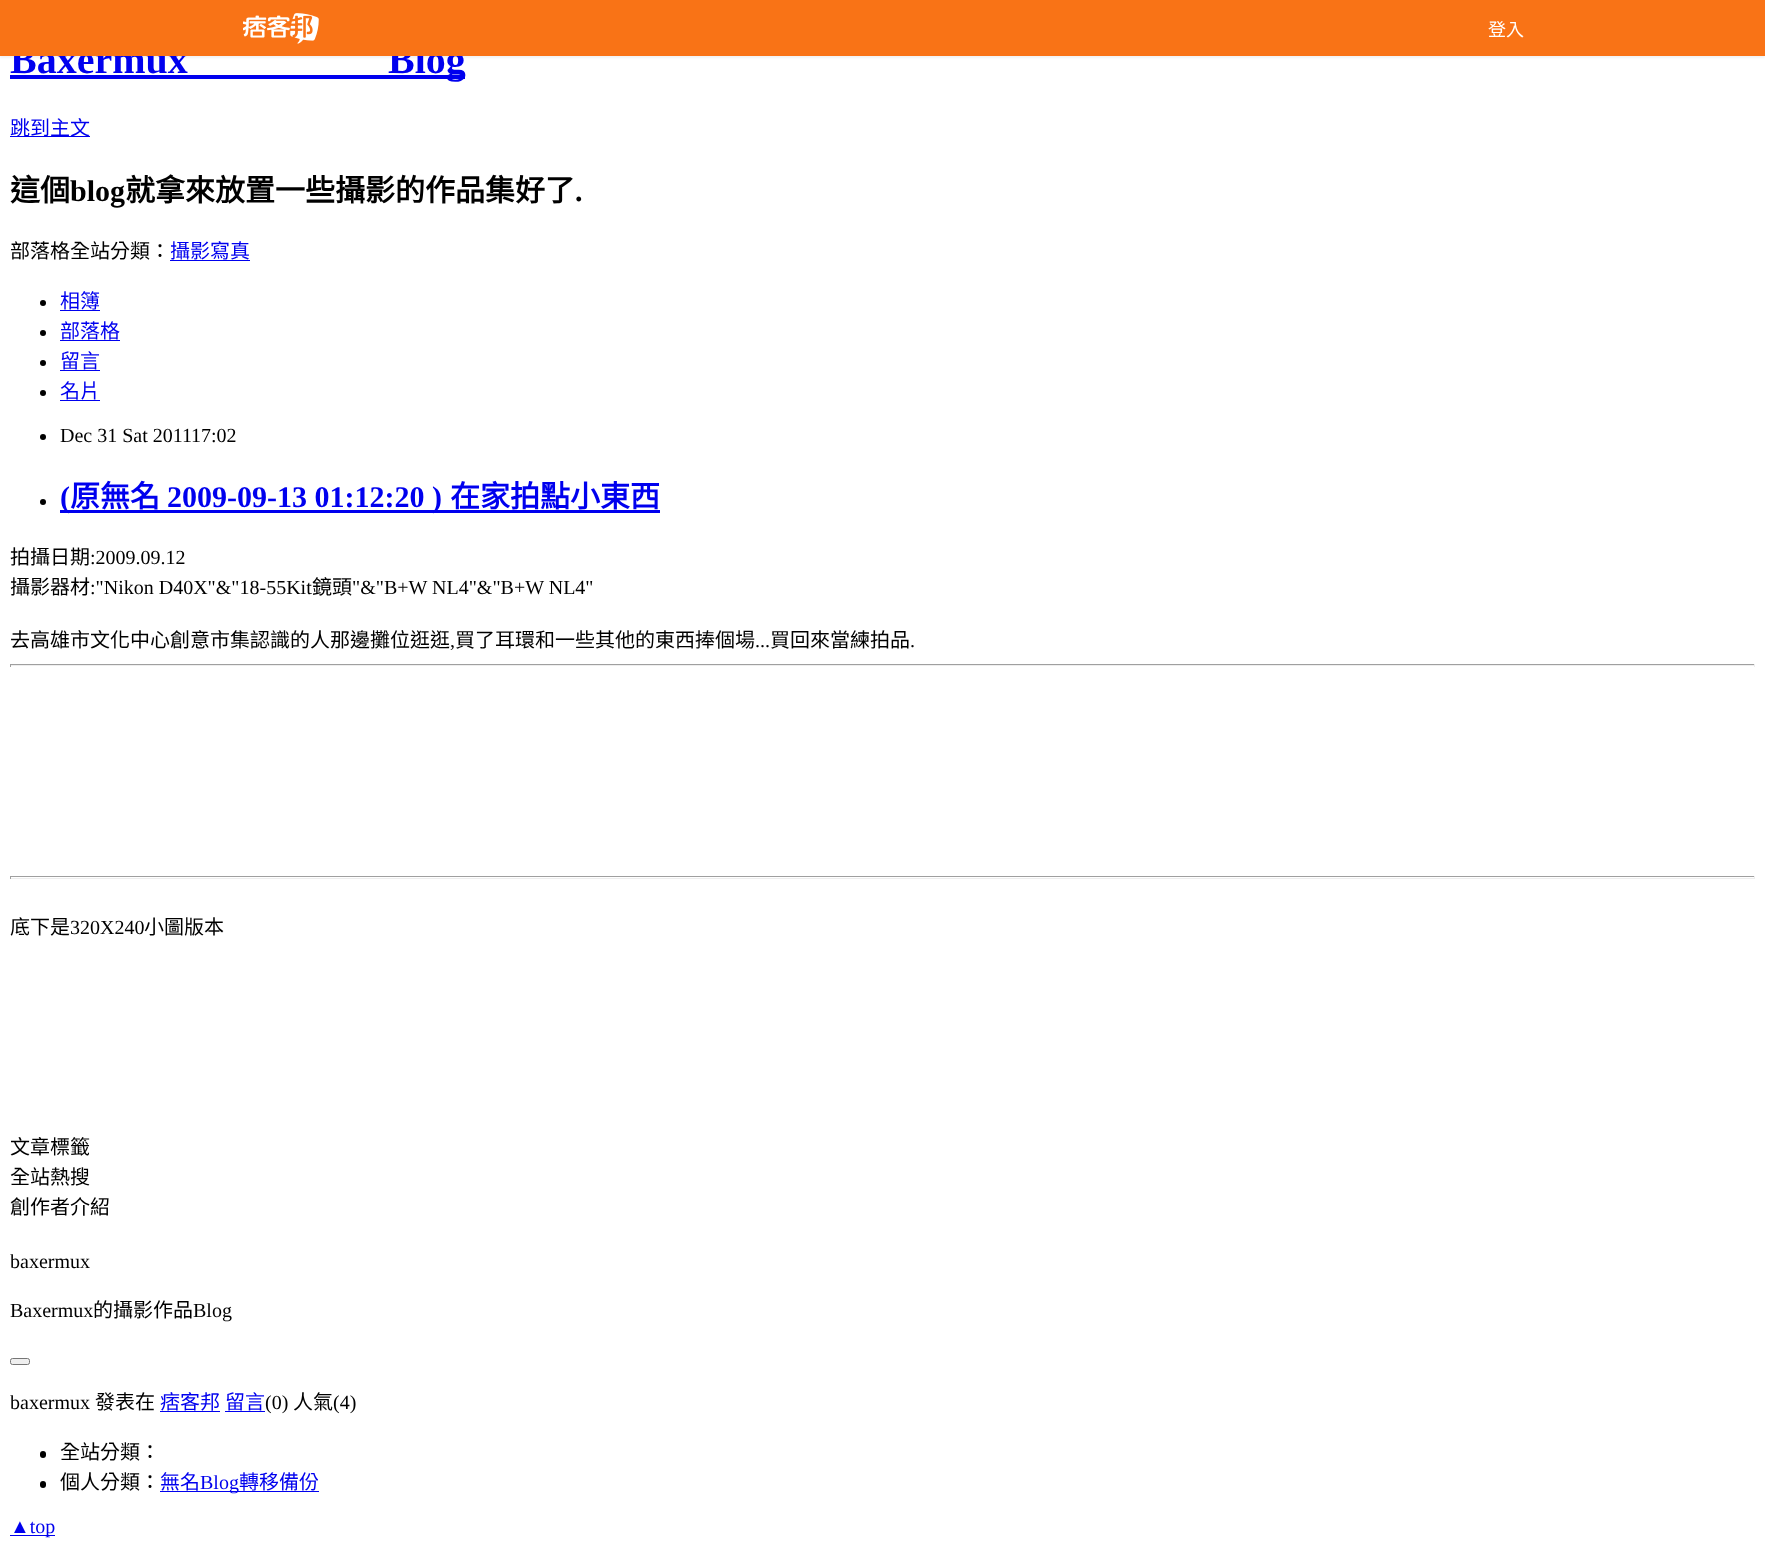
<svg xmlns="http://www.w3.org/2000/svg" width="1765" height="1554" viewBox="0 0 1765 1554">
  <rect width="100%" height="100%" fill="rgb(255,255,255)"/>
  <rect x="0" y="1" width="1765" height="57" fill="rgba(0,0,0,0.05)" filter="blur(1px)"/>
  <text x="10" y="73" font-family="Liberation Serif" font-size="40" font-weight="bold" fill="rgb(0,0,238)">Baxermux</text>
  <rect x="10" y="75" width="455" height="4" fill="rgb(0,0,238)"/>
  <text x="388" y="73" font-family="Liberation Serif" font-size="40" font-weight="bold" fill="rgb(0,0,238)">Blog</text>
  <rect x="0" y="0" width="1765" height="56" fill="rgb(249,115,22)"/>
  <image x="243" y="13" width="76" height="31" href="pic1.png"/>
  <text x="1488" y="36" font-family="Noto Sans CJK TC" font-size="18" fill="rgb(255,255,255)">登入</text>
  <rect x="10" y="136" width="80" height="1" fill="rgb(0,0,238)"/>
  <text x="10" y="135" font-family="Noto Sans CJK TC" font-size="20" fill="rgb(0,0,238)">跳到主文</text>
  <text x="10" y="201" font-family="Noto Sans CJK TC" font-size="30" font-weight="bold" fill="rgb(0,0,0)">這個</text>
  <text x="70" y="201" font-family="Liberation Serif" font-size="30" font-weight="bold" fill="rgb(0,0,0)">blog</text>
  <text x="125" y="201" font-family="Noto Sans CJK TC" font-size="30" font-weight="bold" fill="rgb(0,0,0)">就拿來放置一些攝影的作品集好了</text>
  <text x="575" y="201" font-family="Liberation Serif" font-size="30" font-weight="bold" fill="rgb(0,0,0)">.</text>
  <text x="10" y="258" font-family="Noto Sans CJK TC" font-size="20" fill="rgb(0,0,0)">部落格全站分類：</text>
  <text x="170" y="258" font-family="Noto Sans CJK TC" font-size="20" fill="rgb(0,0,238)">攝影寫真</text>
  <rect x="170" y="260" width="80" height="1" fill="rgb(0,0,238)"/>
  <circle cx="43" cy="303" r="3" fill="rgb(0,0,0)"/>
  <text x="60" y="308" font-family="Noto Sans CJK TC" font-size="20" fill="rgb(0,0,238)">相簿</text>
  <rect x="60" y="310" width="40" height="1" fill="rgb(0,0,238)"/>
  <circle cx="43" cy="333" r="3" fill="rgb(0,0,0)"/>
  <text x="60" y="338" font-family="Noto Sans CJK TC" font-size="20" fill="rgb(0,0,238)">部落格</text>
  <rect x="60" y="340" width="60" height="1" fill="rgb(0,0,238)"/>
  <circle cx="43" cy="363" r="3" fill="rgb(0,0,0)"/>
  <text x="60" y="368" font-family="Noto Sans CJK TC" font-size="20" fill="rgb(0,0,238)">留言</text>
  <rect x="60" y="370" width="40" height="1" fill="rgb(0,0,238)"/>
  <circle cx="43" cy="393" r="3" fill="rgb(0,0,0)"/>
  <text x="60" y="398" font-family="Noto Sans CJK TC" font-size="20" fill="rgb(0,0,238)">名片</text>
  <rect x="60" y="400" width="40" height="1" fill="rgb(0,0,238)"/>
  <circle cx="43" cy="437" r="3" fill="rgb(0,0,0)"/>
  <g font-family="Liberation Serif" font-size="20" fill="rgb(0,0,0)">
    <text x="60" y="442">Dec 31 Sat 2011</text>
    <text x="191" y="442">17:02</text>
  </g>
  <circle cx="43" cy="502" r="3" fill="rgb(0,0,0)"/>
  <rect x="60" y="510" width="600" height="3" fill="rgb(0,0,238)"/>
  <text x="60" y="507" font-family="Liberation Serif" font-size="30" font-weight="bold" fill="rgb(0,0,238)">(</text>
  <text x="70" y="507" font-family="Noto Sans CJK TC" font-size="30" font-weight="bold" fill="rgb(0,0,238)">原無名</text>
  <text x="167" y="507" font-family="Liberation Serif" font-size="30" font-weight="bold" fill="rgb(0,0,238)">2009-09-13 01:12:20 )</text>
  <text x="450" y="507" font-family="Noto Sans CJK TC" font-size="30" font-weight="bold" fill="rgb(0,0,238)">在家拍點小東西</text>
  <text x="10" y="564" font-family="Noto Sans CJK TC" font-size="20" fill="rgb(0,0,0)">拍攝日期</text>
  <text x="90" y="564" font-family="Liberation Serif" font-size="20" fill="rgb(0,0,0)">:2009.09.12</text>
  <text x="10" y="594" font-family="Noto Sans CJK TC" font-size="20" fill="rgb(0,0,0)">攝影器材</text>
  <text x="90" y="594" font-family="Liberation Serif" font-size="20" fill="rgb(0,0,0)">:"Nikon D40X"&amp;"18-55Kit</text>
  <text x="312" y="594" font-family="Noto Sans CJK TC" font-size="20" fill="rgb(0,0,0)">鏡頭</text>
  <text x="352" y="594" font-family="Liberation Serif" font-size="20" fill="rgb(0,0,0)">"&amp;"B+W NL4"&amp;"B+W NL4"</text>
  <text x="10" y="647" font-family="Noto Sans CJK TC" font-size="20" fill="rgb(0,0,0)">去高雄市文化中心創意市集認識的人那邊攤位逛逛</text>
  <text x="450" y="647" font-family="Liberation Serif" font-size="20" fill="rgb(0,0,0)">,</text>
  <text x="455" y="647" font-family="Noto Sans CJK TC" font-size="20" fill="rgb(0,0,0)">買了耳環和一些其他的東西捧個場</text>
  <text x="755" y="647" font-family="Liberation Serif" font-size="20" fill="rgb(0,0,0)">...</text>
  <text x="770" y="647" font-family="Noto Sans CJK TC" font-size="20" fill="rgb(0,0,0)">買回來當練拍品</text>
  <text x="910" y="647" font-family="Liberation Serif" font-size="20" fill="rgb(0,0,0)">.</text>
  <rect x="10" y="664" width="1745" height="1" fill="rgb(159,159,159)"/>
  <rect x="1754" y="664" width="1" height="3" fill="rgb(238,238,238)"/>
  <rect x="10" y="665" width="1745" height="1" fill="rgb(238,238,238)"/>
  <rect x="10" y="664" width="1" height="3" fill="rgb(159,159,159)"/>
  <rect x="10" y="876" width="1745" height="1" fill="rgb(159,159,159)"/>
  <rect x="1754" y="876" width="1" height="3" fill="rgb(238,238,238)"/>
  <rect x="10" y="878" width="1745" height="1" fill="rgb(238,238,238)"/>
  <rect x="10" y="876" width="1" height="3" fill="rgb(159,159,159)"/>
  <text x="10" y="934" font-family="Noto Sans CJK TC" font-size="20" fill="rgb(0,0,0)">底下是</text>
  <text x="70" y="934" font-family="Liberation Serif" font-size="20" fill="rgb(0,0,0)">320X240</text>
  <g font-family="Noto Sans CJK TC" font-size="20" fill="rgb(0,0,0)">
    <text x="144" y="934">小圖版本</text>
    <text>
      <tspan x="10" y="1154">文章標籤</tspan>
      <tspan x="10" y="1184">全站熱搜</tspan>
      <tspan x="10" y="1214">創作者介紹</tspan>
    </text>
  </g>
  <g font-family="Liberation Serif" font-size="20" fill="rgb(0,0,0)">
    <text x="10" y="1268">baxermux</text>
    <text x="10" y="1317">Baxermux</text>
  </g>
  <text x="93" y="1317" font-family="Noto Sans CJK TC" font-size="20" fill="rgb(0,0,0)">的攝影作品</text>
  <text x="193" y="1317" font-family="Liberation Serif" font-size="20" fill="rgb(0,0,0)">Blog</text>
  <rect x="10.5" y="1358.5" width="19" height="6" rx="2" fill="rgb(239,239,239)" stroke="rgb(118,118,118)"/>
  <text x="10" y="1409" font-family="Liberation Serif" font-size="20" fill="rgb(0,0,0)">baxermux</text>
  <text x="95" y="1409" font-family="Noto Sans CJK TC" font-size="20" fill="rgb(0,0,0)">發表在</text>
  <text x="160" y="1409" font-family="Noto Sans CJK TC" font-size="20" fill="rgb(0,0,238)">痞客邦</text>
  <rect x="160" y="1411" width="60" height="1" fill="rgb(0,0,238)"/>
  <text x="225" y="1409" font-family="Noto Sans CJK TC" font-size="20" fill="rgb(0,0,238)">留言</text>
  <rect x="225" y="1411" width="40" height="1" fill="rgb(0,0,238)"/>
  <text x="265" y="1409" font-family="Liberation Serif" font-size="20" fill="rgb(0,0,0)">(0)</text>
  <text x="293" y="1409" font-family="Noto Sans CJK TC" font-size="20" fill="rgb(0,0,0)">人氣</text>
  <text x="333" y="1409" font-family="Liberation Serif" font-size="20" fill="rgb(0,0,0)">(4)</text>
  <rect x="40" y="1451" width="6" height="7" rx="3" fill="rgb(0,0,0)"/>
  <text x="60" y="1459" font-family="Noto Sans CJK TC" font-size="20" fill="rgb(0,0,0)">全站分類：</text>
  <rect x="40" y="1481" width="6" height="7" rx="3" fill="rgb(0,0,0)"/>
  <text x="60" y="1489" font-family="Noto Sans CJK TC" font-size="20" fill="rgb(0,0,0)">個人分類：</text>
  <text x="160" y="1489" font-family="Noto Sans CJK TC" font-size="20" fill="rgb(0,0,238)">無名</text>
  <rect x="160" y="1491" width="159" height="1" fill="rgb(0,0,238)"/>
  <text x="200" y="1489" font-family="Liberation Serif" font-size="20" fill="rgb(0,0,238)">Blog</text>
  <text x="239" y="1489" font-family="Noto Sans CJK TC" font-size="20" fill="rgb(0,0,238)">轉移備份</text>
  <rect x="10" y="1535" width="45" height="1" fill="rgb(0,0,238)"/>
  <text x="10" y="1533" font-family="Liberation Serif" font-size="20" fill="rgb(0,0,238)">▲top</text>
</svg>
